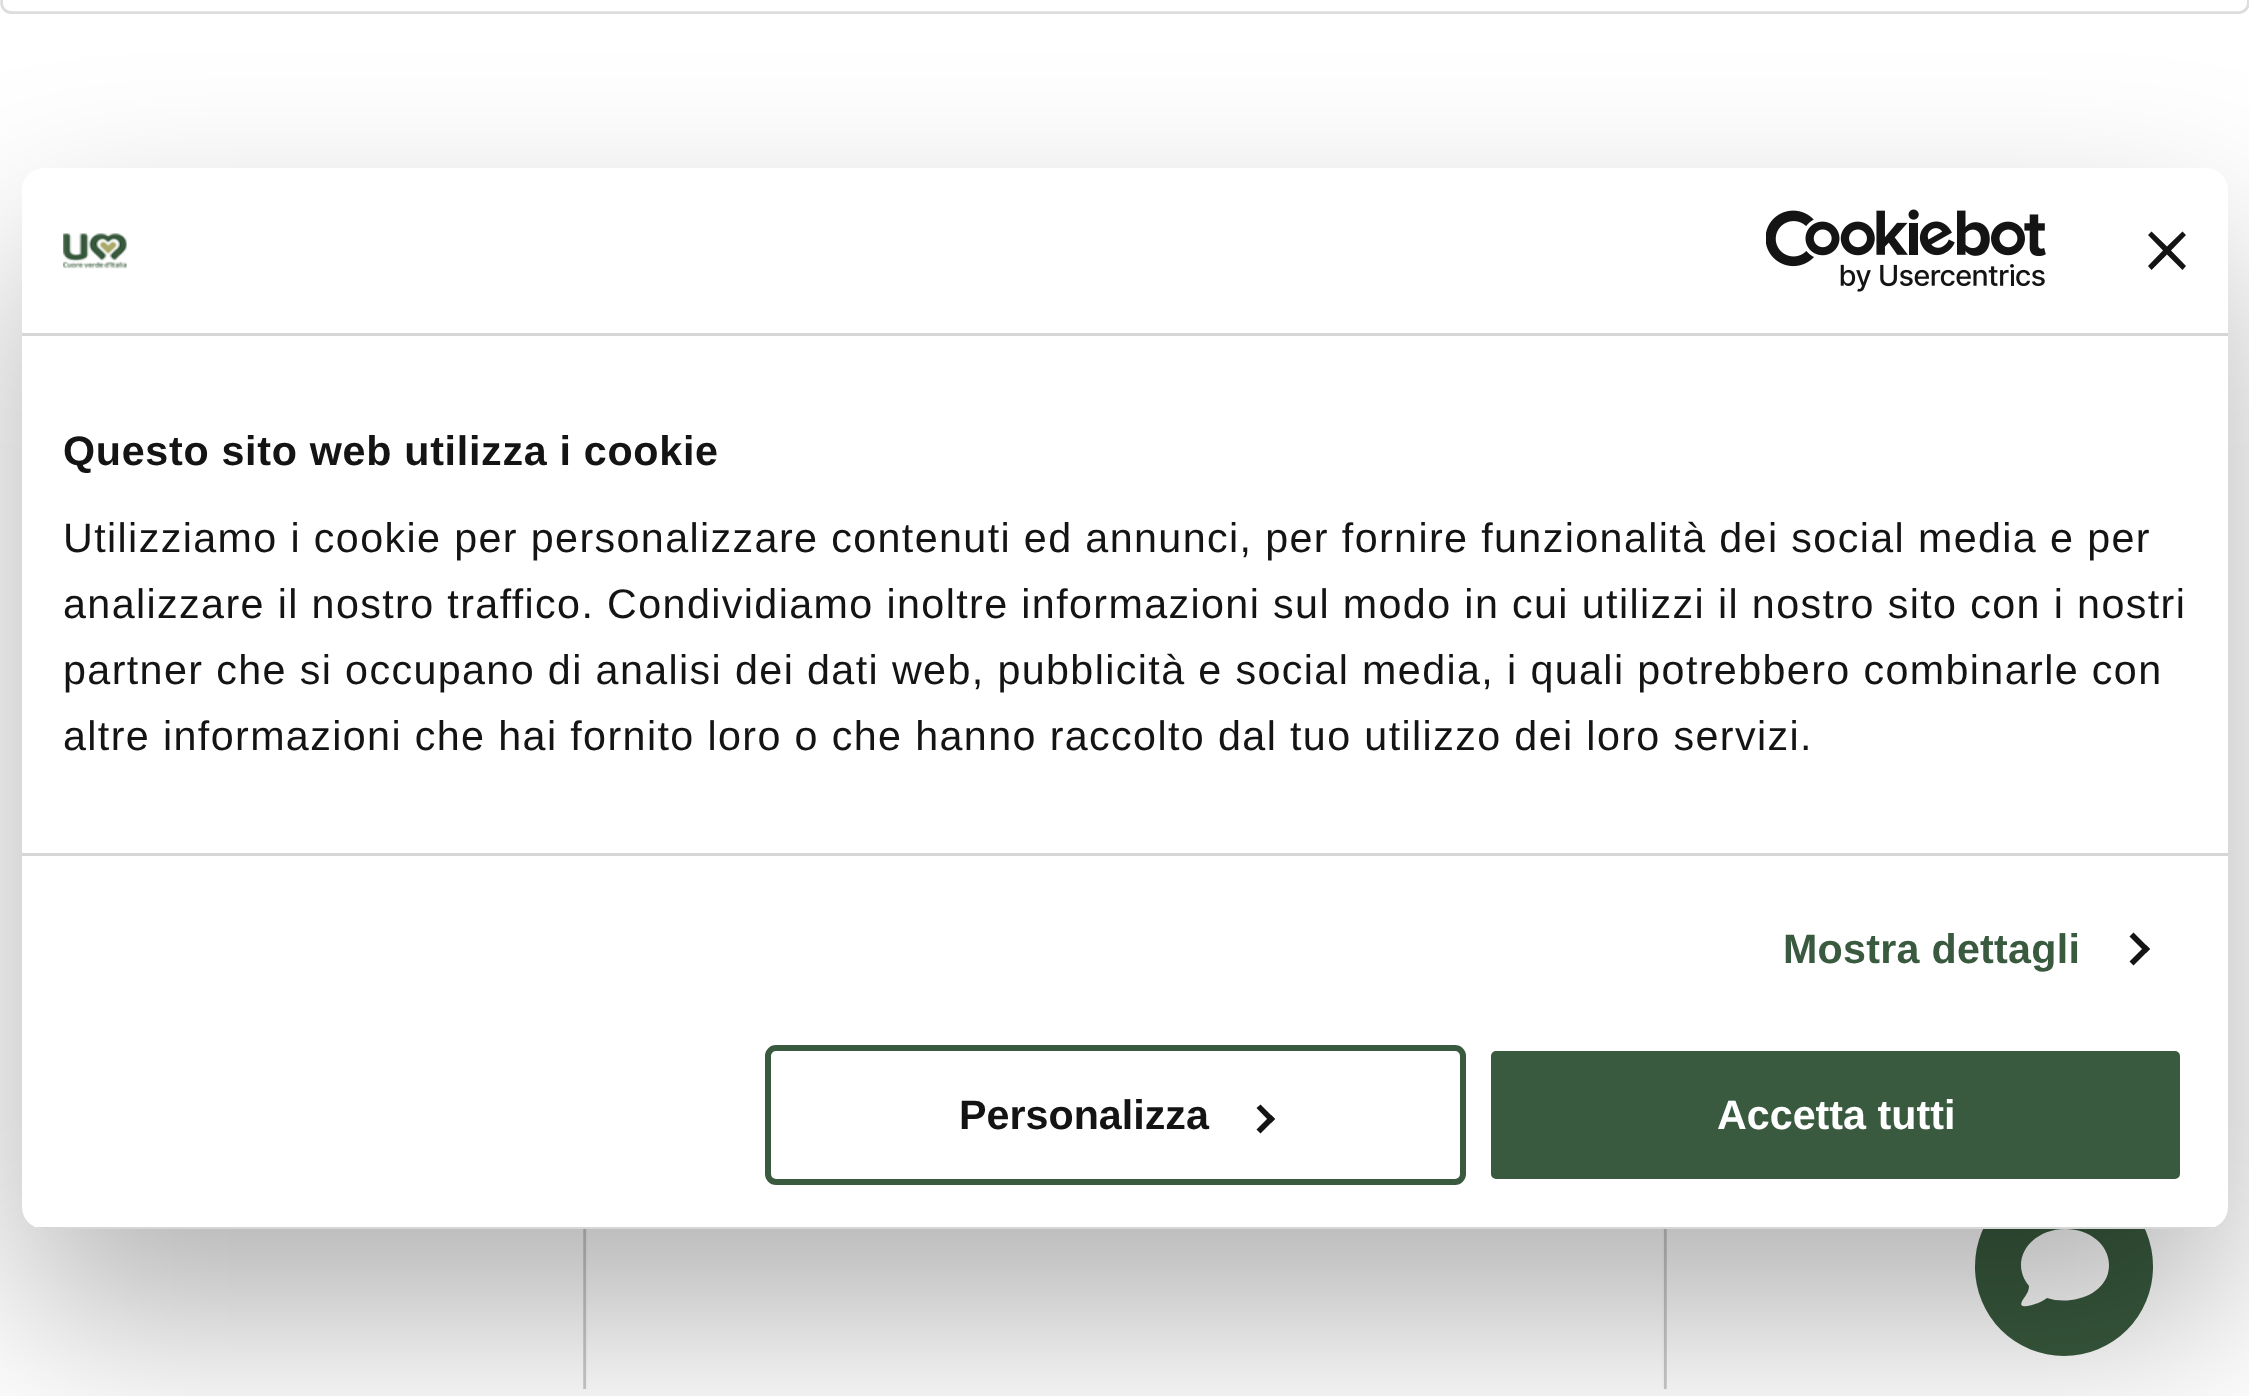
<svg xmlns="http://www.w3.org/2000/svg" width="2249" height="1396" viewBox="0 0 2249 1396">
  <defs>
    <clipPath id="clip1"><rect x="22" y="168" width="2206" height="1061" rx="22"/></clipPath>
  </defs>
  <rect width="100%" height="100%" fill="rgb(255,255,255)"/>
  <image x="0" y="0" width="2249" height="1389" href="pic1.png"/>
  <rect x="1975" y="1177" width="178" height="179" rx="89" fill="rgb(57,90,62)"/>
  <path d="M2109 1265C2109 1295 2071 1306 2047 1298C2044 1300 2039 1303 2035 1304C2032 1305 2027 1307 2023 1306C2018 1305 2025 1297 2026 1295C2028 1292 2029 1289 2029 1286C2024 1280 2021 1273 2021 1265C2021 1245 2041 1229 2065 1229C2090 1229 2109 1245 2109 1265Z" fill="rgb(255,255,255)"/>
  <rect x="22" y="256" width="2206" height="1061" rx="22" fill="rgba(0,0,0,0.3)" filter="blur(93.5px)"/>
  <rect x="22" y="168" width="2206" height="1061" rx="22" fill="rgb(255,255,255)"/>
  <rect x="22" y="333" width="2206" height="3" fill="rgb(214,214,214)"/>
  <image x="63" y="233" width="64" height="36" href="pic2.png"/>
  <image x="1766" y="209" width="280" height="83" href="pic3.png"/>
  <path d="M2186 235L2182.5 231.5L2167 246.5L2151.5 231.5L2148 235L2163 250.5L2148 266L2151.5 270L2167 254.5L2182.5 270L2186 266L2171 250.5Z" fill="rgb(20,20,20)"/>
  <rect x="22" y="853" width="2206" height="3" fill="rgb(214,214,214)"/>
  <text x="63" y="465" font-family="Liberation Sans" font-size="41.25" font-weight="bold" letter-spacing="0.7" fill="rgb(20,20,20)">Questo sito web utilizza i cookie</text>
  <g font-family="Liberation Sans" font-size="41.25" letter-spacing="1.38" fill="rgb(20,20,20)">
    <text>
      <tspan x="63" y="552">Utilizziamo i cookie per personalizzare contenuti ed annunci, per fornire funzionalità dei social media e per</tspan>
      <tspan x="63" y="618">analizzare il nostro traffico. Condividiamo inoltre informazioni sul modo in cui utilizzi il nostro sito con i nostri</tspan>
      <tspan x="63" y="684">partner che si occupano di analisi dei dati web, pubblicità e social media, i quali potrebbero combinarle con</tspan>
      <tspan x="63" y="750">altre informazioni che hai fornito loro o che hanno raccolto dal tuo utilizzo dei loro servizi.</tspan>
    </text>
  </g>
  <text x="1783" y="963" font-family="Liberation Sans" font-size="41.25" font-weight="bold" letter-spacing="0.25" fill="rgb(57,90,62)">Mostra dettagli</text>
  <path d="M2133.5 932.5L2150 949L2146 953L2129.5 936.5Z" fill="rgb(20,20,20)"/>
  <path d="M2146 945L2150 949L2133.5 965.5L2129.5 961.5Z" fill="rgb(20,20,20)"/>
  <g clip-path="url(#clip1)">
    <rect x="35" y="1227" width="2180" height="2" fill="rgb(214,214,214)"/>
  </g>
  <rect x="768" y="1048" width="695" height="134" rx="8" fill="none" stroke="rgb(57,90,62)" stroke-width="6"/>
  <text x="959" y="1129" font-family="Liberation Sans" font-size="41.25" font-weight="bold" fill="rgb(20,20,20)">Personalizza</text>
  <path d="M1260.5 1104.5L1275 1119L1271 1123L1256.5 1108Z" fill="rgb(20,20,20)"/>
  <path d="M1271 1115L1275 1119L1260.5 1133.5L1256.5 1129.5Z" fill="rgb(20,20,20)"/>
  <rect x="1488" y="1048" width="695" height="134" rx="8" fill="rgb(57,90,62)" stroke="rgb(255,255,255)" stroke-width="6"/>
  <text x="1717" y="1129" font-family="Liberation Sans" font-size="41.25" font-weight="bold" fill="rgb(255,255,255)">Accetta tutti</text>
</svg>
